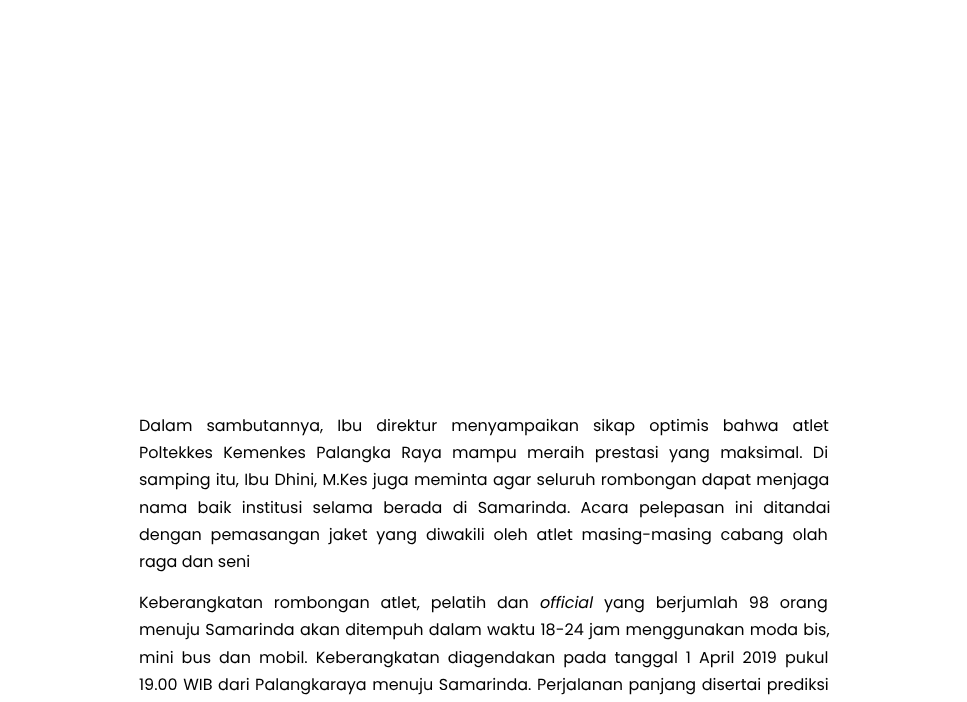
<svg xmlns="http://www.w3.org/2000/svg" width="967" height="702" viewBox="0 0 967 702">
  <rect width="100%" height="100%" fill="rgb(255,255,255)"/>
  <g font-family="Poppins" font-size="16" fill="rgb(0,0,0)">
    <text>
      <tspan x="139" y="431" word-spacing="9.75">Dalam sambutannya, Ibu direktur menyampaikan sikap optimis bahwa atlet</tspan>
      <tspan x="139" y="458" word-spacing="6">Poltekkes Kemenkes Palangka Raya mampu meraih prestasi yang maksimal. Di</tspan>
      <tspan x="139" y="485" word-spacing="1">samping itu, Ibu Dhini, M.Kes juga meminta agar seluruh rombongan dapat menjaga</tspan>
      <tspan x="139" y="513" word-spacing="6">nama baik institusi selama berada di Samarinda. Acara pelepasan ini ditandai</tspan>
      <tspan x="139" y="540" word-spacing="4.5">dengan pemasangan jaket yang diwakili oleh atlet masing-masing cabang olah</tspan>
      <tspan x="139" y="567">raga dan seni</tspan>
    </text>
    <text x="139" y="608" word-spacing="6.5">Keberangkatan rombongan atlet, pelatih dan</text>
  </g>
  <text x="540" y="608" font-family="Poppins" font-size="16" font-style="italic" fill="rgb(0,0,0)">official</text>
  <g font-family="Poppins" font-size="16" fill="rgb(0,0,0)">
    <text x="604" y="608" word-spacing="6.5">yang berjumlah 98 orang</text>
    <text>
      <tspan x="139" y="635" word-spacing="1">menuju Samarinda akan ditempuh dalam waktu 18-24 jam menggunakan moda bis,</tspan>
      <tspan x="139" y="663" word-spacing="3.75">mini bus dan mobil. Keberangkatan diagendakan pada tanggal 1 April 2019 pukul</tspan>
      <tspan x="139" y="690" word-spacing="1.25">19.00 WIB dari Palangkaraya menuju Samarinda. Perjalanan panjang disertai prediksi</tspan>
    </text>
  </g>
</svg>
